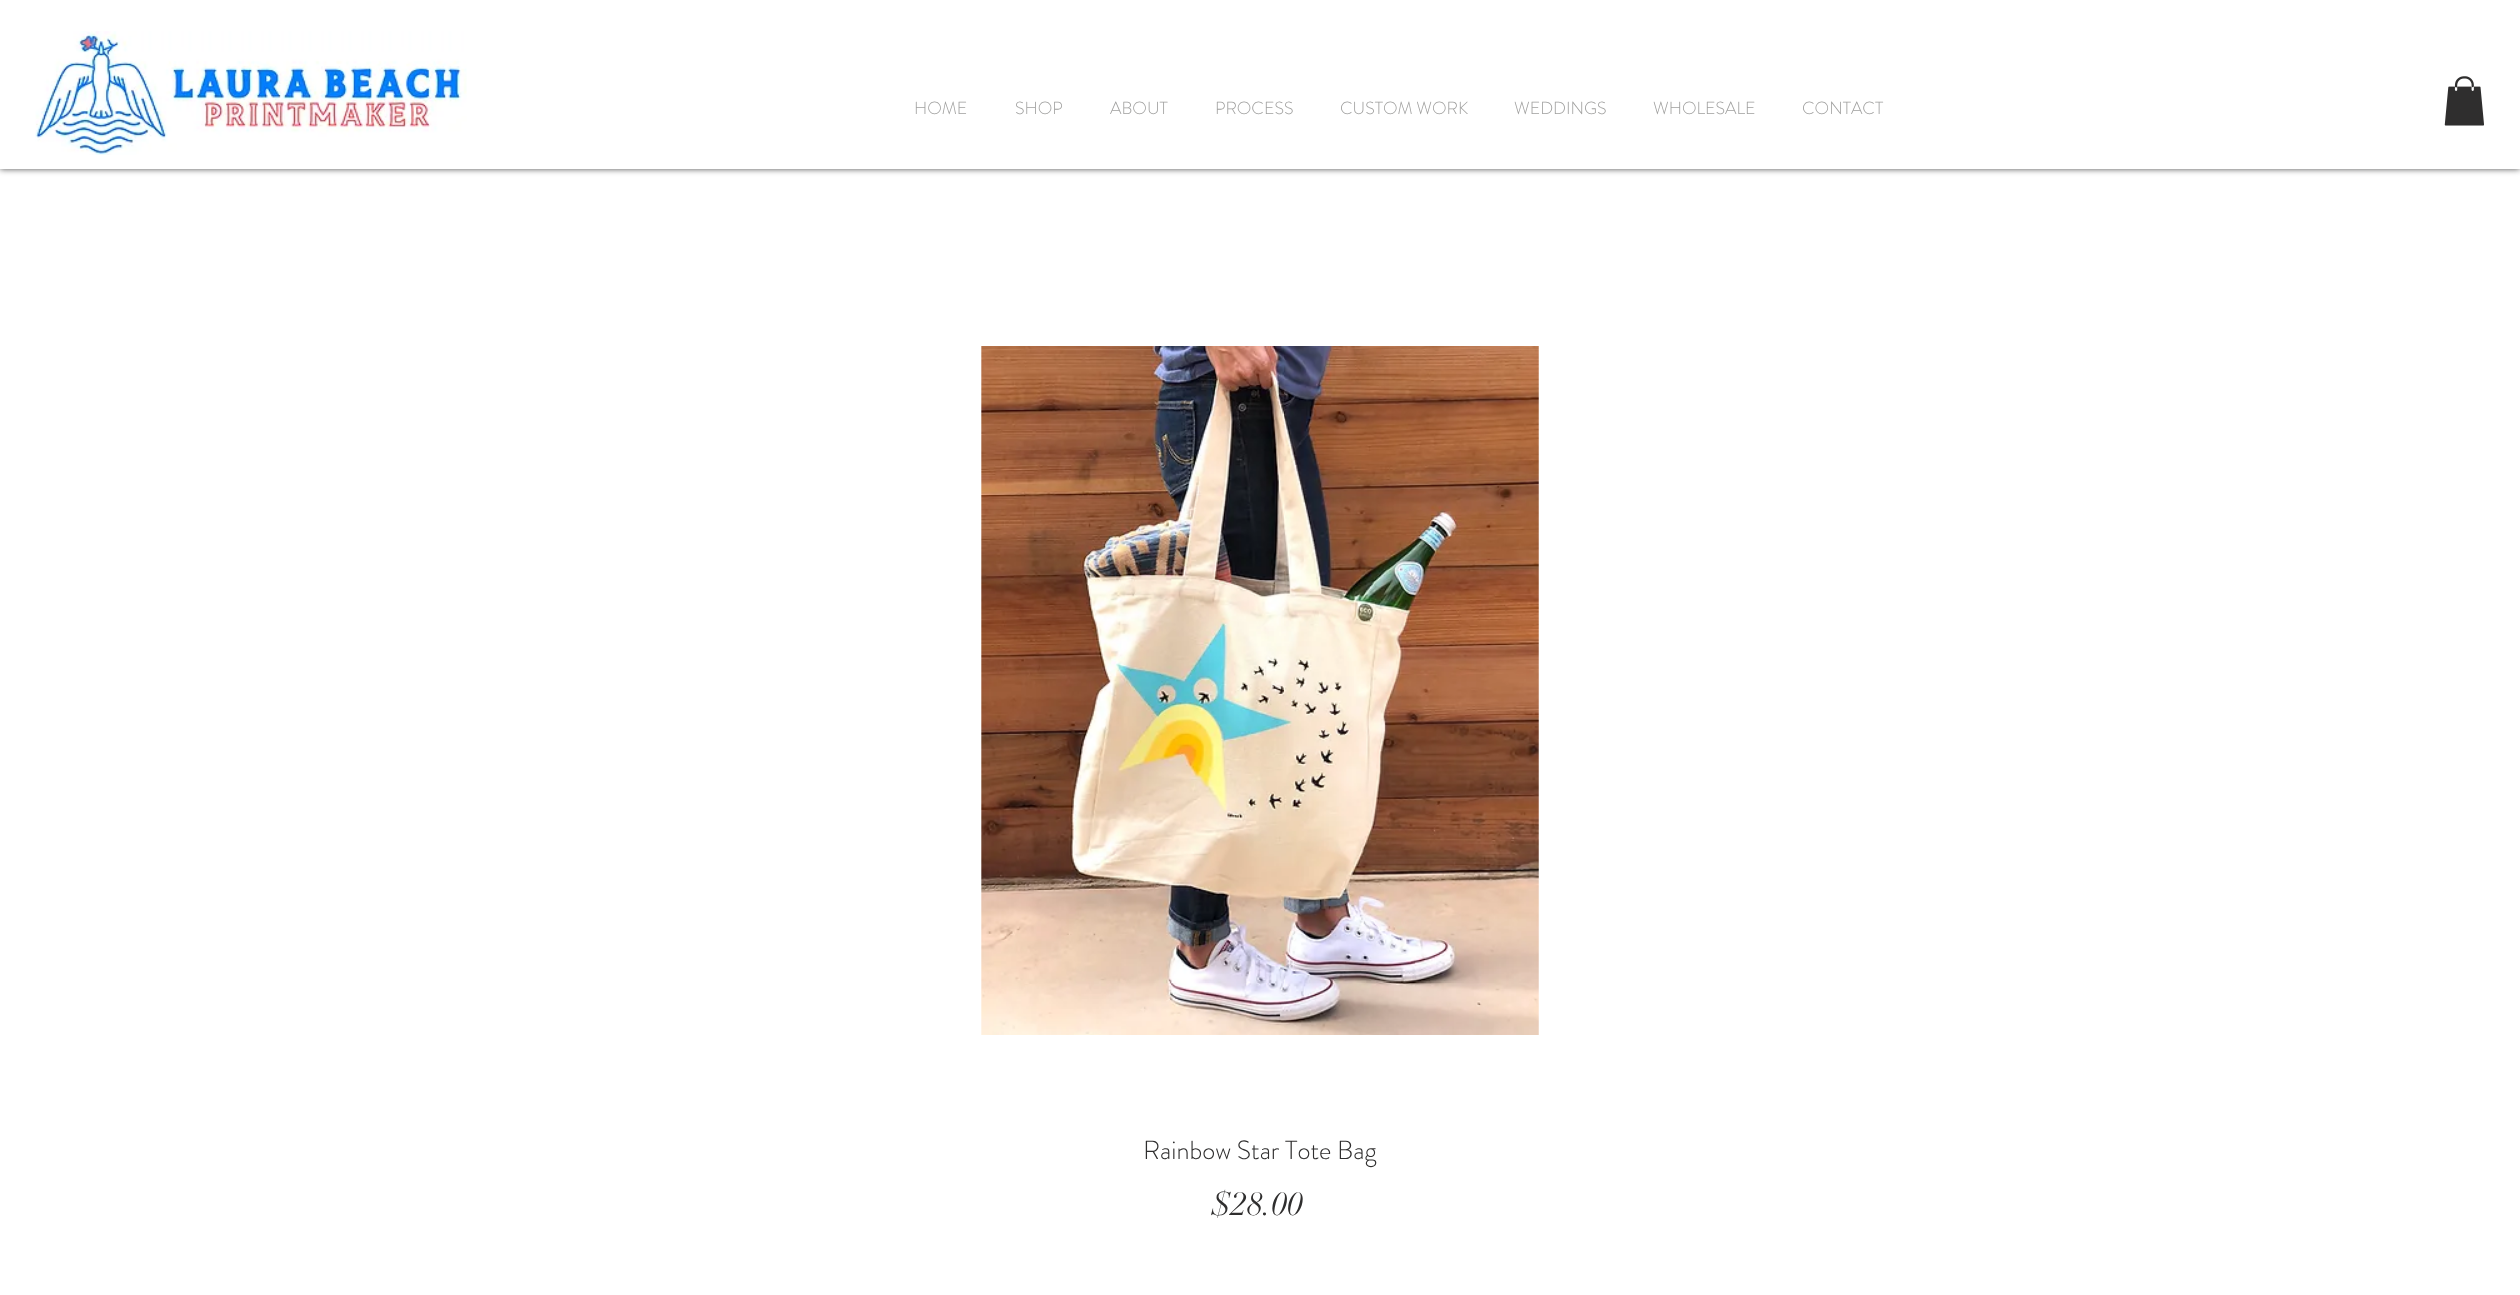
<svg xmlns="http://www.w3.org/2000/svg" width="2520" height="1295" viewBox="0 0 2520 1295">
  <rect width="100%" height="100%" fill="rgb(255,255,255)"/>
  <rect x="0" y="0" width="2520" height="169" fill="rgba(0,0,0,0.7)" filter="blur(3px)"/>
  <rect x="0" y="0" width="2520" height="169" fill="rgb(255,255,255)"/>
  <image x="35" y="31" width="432" height="124" href="pic1.png"/>
  <g font-family="'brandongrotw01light'" font-size="17.5" font-weight="300" fill="rgb(160,160,159)">
    <text x="914" y="114">HOME</text>
    <text x="1015" y="114">SHOP</text>
    <text x="1110" y="114">ABOUT</text>
    <text x="1215" y="114">PROCESS</text>
    <text x="1340" y="114">CUSTOM WORK</text>
    <text x="1514" y="114">WEDDINGS</text>
    <text x="1653" y="114">WHOLESALE</text>
    <text x="1802" y="114">CONTACT</text>
  </g>
  <image x="2444" y="76" width="40" height="50" href="pic2.png"/>
  <image x="981" y="346" width="558" height="689" href="pic3.png"/>
  <text x="1143" y="1159" font-family="'brandongrotw01light'" font-size="26.25" font-weight="300" fill="rgb(47,46,46)">Rainbow Star Tote Bag</text>
  <text x="1211" y="1215" font-family="didot" font-size="32.5" fill="rgb(47,46,46)">$28.00</text>
</svg>
